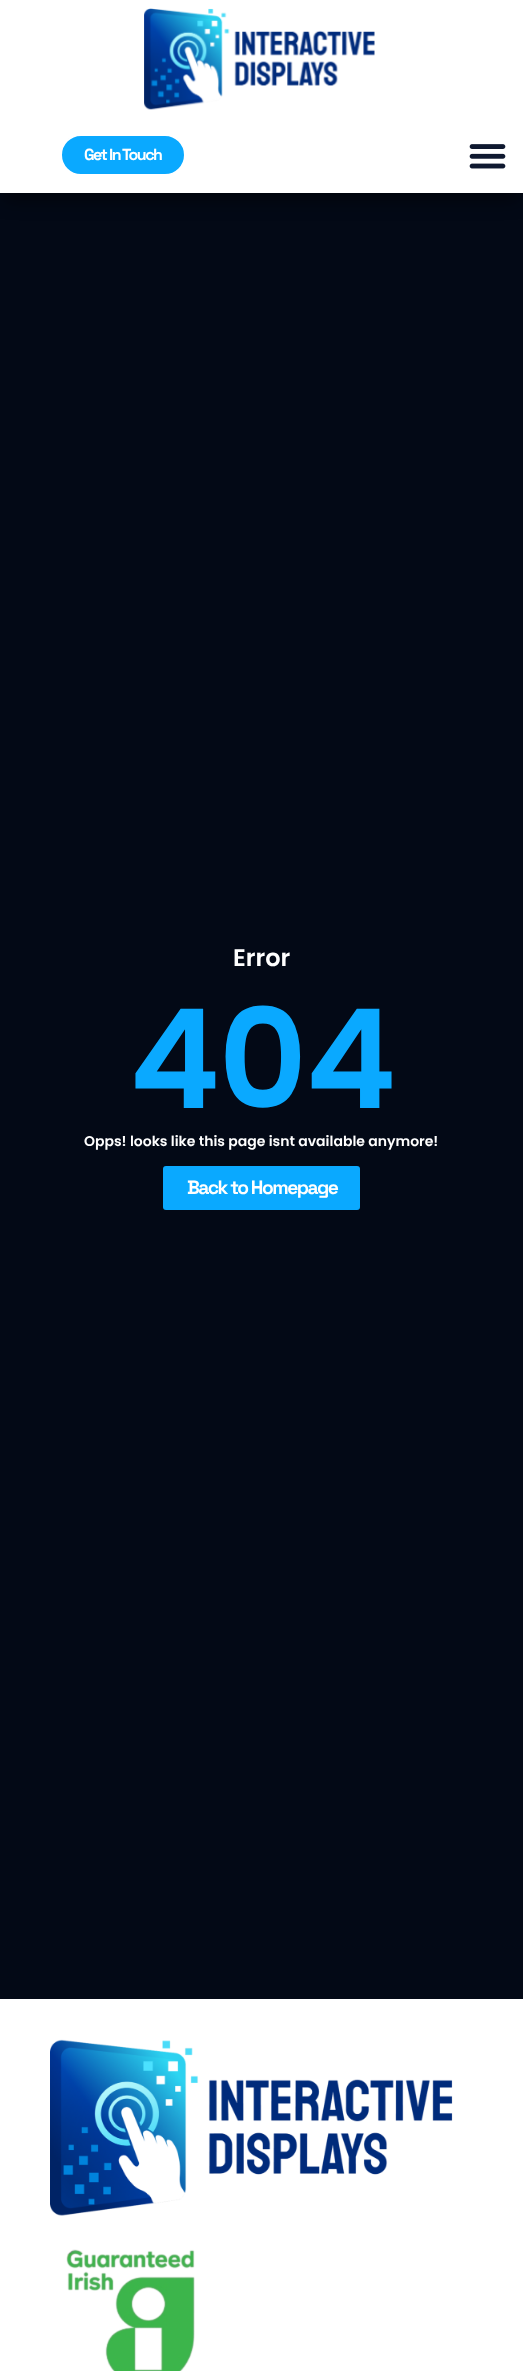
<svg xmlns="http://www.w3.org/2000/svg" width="523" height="2371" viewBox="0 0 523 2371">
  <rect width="100%" height="100%" fill="rgb(255,255,255)"/>
  <rect x="0" y="193" width="523" height="1806" fill="rgb(3,9,22)"/>
  <rect x="4" y="15" width="515" height="185" fill="rgba(0,0,0,0.5)" filter="blur(9px)"/>
  <rect x="0" y="0" width="523" height="193" fill="rgb(255,255,255)"/>
  <image x="144" y="8" width="231" height="102" href="pic1.png"/>
  <rect x="61" y="135" width="124" height="40" rx="20" fill="rgb(10,169,255)" stroke="rgb(255,255,255)" stroke-width="2"/>
  <text x="84" y="160" font-family="Space Grotesk" font-size="16" font-weight="bold" letter-spacing="-1.5" fill="rgb(255,255,255)">Get In Touch</text>
  <image x="469" y="144" width="37" height="25" href="pic2.png"/>
  <text x="233" y="966" font-family="Poppins" font-size="24" font-weight="600" fill="rgb(255,255,255)">Error</text>
  <text x="129" y="1108" font-family="Poppins" font-size="138" font-weight="600" letter-spacing="-2" fill="rgb(10,169,255)">404</text>
  <text x="84" y="1146" font-family="Poppins" font-size="14" font-weight="600" fill="rgb(255,255,255)">Opps! looks like this page isnt available anymore!</text>
  <rect x="163" y="1166" width="197" height="44" rx="3" fill="rgb(10,169,255)"/>
  <text x="187" y="1194" font-family="Space Grotesk" font-size="19.25" font-weight="bold" letter-spacing="-1.5" fill="rgb(255,255,255)">Back to Homepage</text>
  <image x="50" y="2039" width="403" height="177" href="pic3.png"/>
  <image x="66" y="2249" width="129" height="122" href="pic4.png"/>
</svg>
